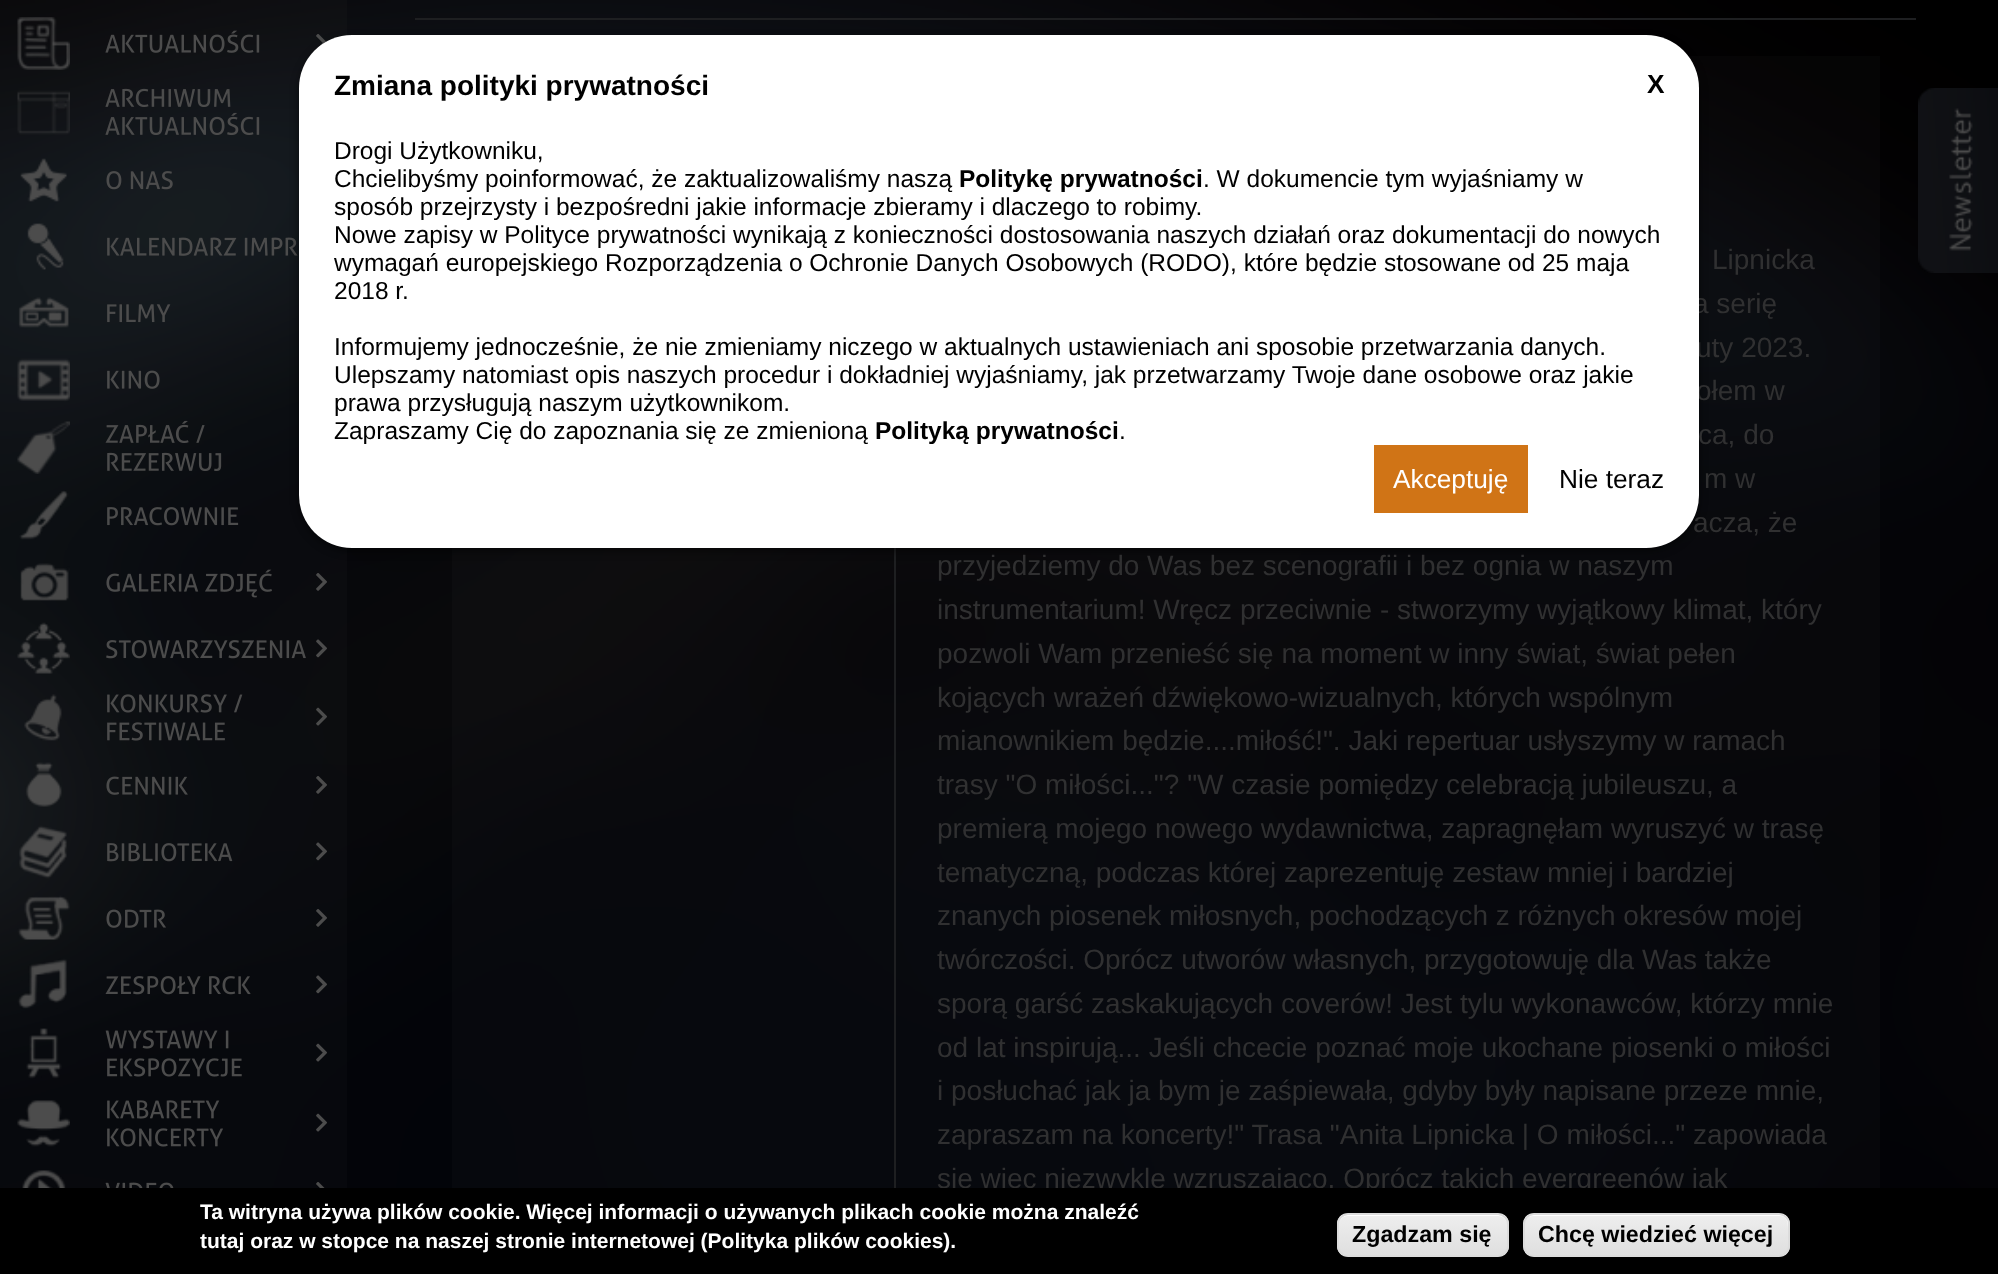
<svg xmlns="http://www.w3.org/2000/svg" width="1998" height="1274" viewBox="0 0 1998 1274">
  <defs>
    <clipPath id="clip1"><rect x="1337" y="1213" width="172" height="44" rx="11"/></clipPath>
    <linearGradient id="g1" gradientUnits="userSpaceOnUse" x1="1339" y1="1215" x2="1339" y2="1255"><stop offset="0.05" stop-color="rgb(237,237,237)"/><stop offset="1" stop-color="rgb(223,223,223)"/></linearGradient>
    <clipPath id="clip2"><rect x="1523" y="1213" width="267" height="44" rx="11"/></clipPath>
    <linearGradient id="g2" gradientUnits="userSpaceOnUse" x1="1524" y1="1215" x2="1524" y2="1255"><stop offset="0.05" stop-color="rgb(237,237,237)"/><stop offset="1" stop-color="rgb(223,223,223)"/></linearGradient>
  </defs>
  <rect width="100%" height="100%" fill="rgb(255,255,255)"/>
  <image x="0" y="0" width="1998" height="1188" href="pic1.png"/>
  <rect x="0" y="0" width="347" height="1188" fill="rgba(77,77,77,0.07)"/>
  <image x="316" y="34" width="11" height="16" href="pic5.png"/>
  <image x="107" y="237" width="191" height="19" href="pic12.png"/>
  <rect x="452" y="56" width="1428" height="1132" fill="rgba(77,77,77,0.07)"/>
  <rect x="894" y="548" width="2" height="640" fill="rgb(30,31,33)"/>
  <rect x="299" y="39" width="1400" height="512" rx="53" fill="rgba(0,0,0,0.5)" filter="blur(4.5px)"/>
  <g font-family="Liberation Sans" font-size="28" fill="rgb(48,48,49)">
    <text x="1693" y="313">a serię</text>
    <text>
      <tspan x="1696" y="357">uty 2023.</tspan>
      <tspan x="1696" y="400">ołem w</tspan>
    </text>
    <text x="1693" y="532">acza, że</text>
  </g>
  <rect x="299" y="35" width="1400" height="513" rx="53" fill="rgb(255,255,255)"/>
  <text x="334" y="95" font-family="Liberation Sans" font-size="28" font-weight="bold" fill="rgb(0,0,0)">Zmiana polityki prywatności</text>
  <text x="1647" y="93" font-family="Liberation Sans" font-size="26.25" font-weight="bold" fill="rgb(0,0,0)">X</text>
  <g font-family="Liberation Sans" font-size="24.5" fill="rgb(0,0,0)">
    <text>
      <tspan x="334" y="159">Drogi Użytkowniku,</tspan>
      <tspan x="334" y="187">Chcielibyśmy poinformować, że zaktualizowaliśmy naszą</tspan>
    </text>
  </g>
  <text x="959" y="187" font-family="Liberation Sans" font-size="24.5" font-weight="bold" fill="rgb(0,0,0)">Politykę prywatności</text>
  <g font-family="Liberation Sans" font-size="24.5" fill="rgb(0,0,0)">
    <text x="1203" y="187">. W dokumencie tym wyjaśniamy w</text>
    <text>
      <tspan x="334" y="215">sposób przejrzysty i bezpośredni jakie informacje zbieramy i dlaczego to robimy.</tspan>
      <tspan x="334" y="243">Nowe zapisy w Polityce prywatności wynikają z konieczności dostosowania naszych działań oraz dokumentacji do nowych</tspan>
      <tspan x="334" y="271">wymagań europejskiego Rozporządzenia o Ochronie Danych Osobowych (RODO), które będzie stosowane od 25 maja</tspan>
      <tspan x="334" y="299">2018 r.</tspan>
    </text>
    <text>
      <tspan x="334" y="355">Informujemy jednocześnie, że nie zmieniamy niczego w aktualnych ustawieniach ani sposobie przetwarzania danych.</tspan>
      <tspan x="334" y="383">Ulepszamy natomiast opis naszych procedur i dokładniej wyjaśniamy, jak przetwarzamy Twoje dane osobowe oraz jakie</tspan>
      <tspan x="334" y="411">prawa przysługują naszym użytkownikom.</tspan>
      <tspan x="334" y="439">Zapraszamy Cię do zapoznania się ze zmienioną</tspan>
    </text>
  </g>
  <text x="875" y="439" font-family="Liberation Sans" font-size="24.5" font-weight="bold" fill="rgb(0,0,0)">Polityką prywatności</text>
  <text x="1119" y="439" font-family="Liberation Sans" font-size="24.5" fill="rgb(0,0,0)">.</text>
  <rect x="1374" y="445" width="154" height="68" fill="rgb(208,116,22)"/>
  <text x="1393" y="488" font-family="Liberation Sans" font-size="26.25" fill="rgb(255,255,255)">Akceptuję</text>
  <text x="1559" y="488" font-family="Liberation Sans" font-size="26.25" fill="rgb(0,0,0)">Nie teraz</text>
  <image x="1918" y="88" width="80" height="185" href="pic2.png"/>
  <image x="17" y="17" width="53" height="53" href="pic3.png"/>
  <image x="105" y="30" width="155" height="23" href="pic4.png"/>
  <image x="17" y="90" width="53" height="45" href="pic6.png"/>
  <image x="105" y="88" width="126" height="19" href="pic7.png"/>
  <image x="105" y="112" width="155" height="24" href="pic8.png"/>
  <image x="20" y="158" width="47" height="44" href="pic9.png"/>
  <image x="106" y="171" width="67" height="19" href="pic10.png"/>
  <image x="27" y="223" width="37" height="47" href="pic11.png"/>
  <image x="18" y="297" width="51" height="31" href="pic13.png"/>
  <image x="107" y="304" width="64" height="19" href="pic14.png"/>
  <image x="17" y="358" width="53" height="44" href="pic15.png"/>
  <image x="107" y="370" width="53" height="19" href="pic16.png"/>
  <image x="17" y="421" width="53" height="53" href="pic17.png"/>
  <image x="105" y="420" width="100" height="23" href="pic18.png"/>
  <image x="107" y="452" width="115" height="19" href="pic19.png"/>
  <image x="19" y="490" width="50" height="50" href="pic20.png"/>
  <image x="107" y="507" width="132" height="19" href="pic21.png"/>
  <image x="20" y="563" width="50" height="38" href="pic22.png"/>
  <image x="106" y="569" width="166" height="29" href="pic23.png"/>
  <image x="316" y="573" width="11" height="18" href="pic24.png"/>
  <image x="17" y="622" width="53" height="52" href="pic25.png"/>
  <image x="106" y="640" width="200" height="19" href="pic26.png"/>
  <image x="316" y="639" width="11" height="19" href="pic27.png"/>
  <image x="24" y="694" width="38" height="47" href="pic28.png"/>
  <image x="107" y="694" width="136" height="19" href="pic29.png"/>
  <image x="316" y="707" width="11" height="19" href="pic30.png"/>
  <image x="107" y="722" width="118" height="19" href="pic31.png"/>
  <image x="25" y="762" width="37" height="45" href="pic32.png"/>
  <image x="106" y="776" width="82" height="19" href="pic33.png"/>
  <image x="316" y="776" width="11" height="18" href="pic34.png"/>
  <image x="19" y="825" width="48" height="54" href="pic35.png"/>
  <image x="107" y="843" width="126" height="19" href="pic36.png"/>
  <image x="316" y="842" width="11" height="19" href="pic37.png"/>
  <image x="17" y="895" width="53" height="45" href="pic38.png"/>
  <image x="106" y="909" width="60" height="19" href="pic39.png"/>
  <image x="316" y="909" width="11" height="18" href="pic40.png"/>
  <image x="17" y="958" width="50" height="51" href="pic41.png"/>
  <image x="105" y="976" width="146" height="19" href="pic42.png"/>
  <image x="316" y="975" width="11" height="19" href="pic43.png"/>
  <image x="26" y="1028" width="36" height="51" href="pic44.png"/>
  <image x="105" y="1030" width="124" height="19" href="pic45.png"/>
  <image x="316" y="1043" width="11" height="19" href="pic46.png"/>
  <image x="107" y="1058" width="135" height="19" href="pic47.png"/>
  <image x="17" y="1100" width="53" height="47" href="pic48.png"/>
  <image x="107" y="1100" width="113" height="19" href="pic49.png"/>
  <image x="316" y="1113" width="11" height="19" href="pic50.png"/>
  <image x="107" y="1128" width="116" height="19" href="pic51.png"/>
  <image x="22" y="1170" width="44" height="18" href="pic52.png"/>
  <image x="105" y="1182" width="69" height="6" href="pic53.png"/>
  <image x="316" y="1182" width="9" height="6" href="pic54.png"/>
  <rect x="415" y="18" width="1501" height="2" fill="rgb(30,31,33)"/>
  <g font-family="Liberation Sans" font-size="28" fill="rgb(48,48,49)">
    <text x="1712" y="269">Lipnicka</text>
    <text x="1698" y="444">ca, do</text>
    <text x="1704" y="488">m w</text>
    <text>
      <tspan x="937" y="575">przyjedziemy do Was bez scenografii i bez ognia w naszym</tspan>
      <tspan x="937" y="619">instrumentarium! Wręcz przeciwnie - stworzymy wyjątkowy klimat, który</tspan>
      <tspan x="937" y="663">pozwoli Wam przenieść się na moment w inny świat, świat pełen</tspan>
      <tspan x="937" y="707">kojących wrażeń dźwiękowo-wizualnych, których wspólnym</tspan>
      <tspan x="937" y="750">mianownikiem będzie....miłość!". Jaki repertuar usłyszymy w ramach</tspan>
      <tspan x="937" y="794">trasy "O miłości..."? "W czasie pomiędzy celebracją jubileuszu, a</tspan>
      <tspan x="937" y="838">premierą mojego nowego wydawnictwa, zapragnęłam wyruszyć w trasę</tspan>
      <tspan x="937" y="882">tematyczną, podczas której zaprezentuję zestaw mniej i bardziej</tspan>
      <tspan x="937" y="925">znanych piosenek miłosnych, pochodzących z różnych okresów mojej</tspan>
      <tspan x="937" y="969">twórczości. Oprócz utworów własnych, przygotowuję dla Was także</tspan>
      <tspan x="937" y="1013">sporą garść zaskakujących coverów! Jest tylu wykonawców, którzy mnie</tspan>
      <tspan x="937" y="1057">od lat inspirują... Jeśli chcecie poznać moje ukochane piosenki o miłości</tspan>
      <tspan x="937" y="1100">i posłuchać jak ja bym je zaśpiewała, gdyby były napisane przeze mnie,</tspan>
      <tspan x="937" y="1144">zapraszam na koncerty!" Trasa "Anita Lipnicka | O miłości..." zapowiada</tspan>
      <tspan x="937" y="1188">się więc niezwykle wzruszająco. Oprócz takich evergreenów jak</tspan>
    </text>
  </g>
  <rect x="0" y="1188" width="1998" height="86" fill="rgb(0,0,0)"/>
  <g font-family="Liberation Sans" font-size="21" font-weight="bold" fill="rgb(255,255,255)">
    <text>
      <tspan x="200" y="1219">Ta witryna używa plików cookie. Więcej informacji o używanych plikach cookie można znaleźć</tspan>
      <tspan x="200" y="1248">tutaj oraz w stopce na naszej stronie internetowej (Polityka plików cookies).</tspan>
    </text>
  </g>
  <g clip-path="url(#clip1)">
    <rect x="1337" y="1215" width="172" height="40" fill="url(#g1)"/>
  </g>
  <path d="M1348 1216H1498C1503 1216 1507 1220 1507 1225C1507 1209 1480 1215 1473 1215H1373C1366 1215 1339 1209 1339 1225C1339 1220 1343 1216 1348 1216Z" fill="rgb(255,255,255)"/>
  <rect x="1338" y="1214" width="170" height="42" rx="10" fill="none" stroke="rgb(220,220,220)" stroke-width="2"/>
  <text x="1352" y="1242" font-family="Liberation Sans" font-size="23.25" font-weight="bold" fill="rgb(0,0,0)">Zgadzam się</text>
  <g clip-path="url(#clip2)">
    <rect x="1523" y="1215" width="267" height="40" fill="url(#g2)"/>
  </g>
  <path d="M1533 1216H1780C1789 1216 1788 1227 1788 1233V1251C1789 1249 1789 1248 1789 1246V1224C1789 1219 1785 1215 1780 1215H1533C1528 1215 1524 1219 1524 1224V1225C1524 1220 1528 1216 1533 1216Z" fill="rgb(255,255,255)"/>
  <rect x="1524" y="1214" width="265" height="42" rx="10" fill="none" stroke="rgb(220,220,220)" stroke-width="2"/>
  <text x="1538" y="1242" font-family="Liberation Sans" font-size="23.25" font-weight="bold" fill="rgb(0,0,0)">Chcę wiedzieć więcej</text>
</svg>
